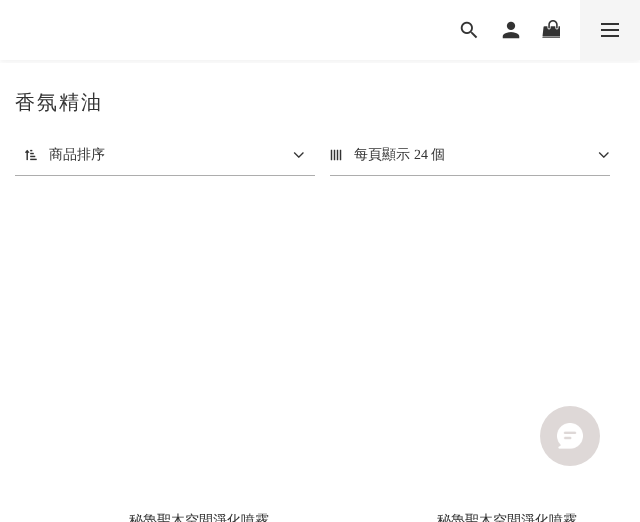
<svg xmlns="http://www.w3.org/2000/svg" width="640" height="522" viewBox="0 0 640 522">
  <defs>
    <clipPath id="clip1"><rect x="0" y="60" width="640" height="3"/></clipPath>
  </defs>
  <rect width="100%" height="100%" fill="rgb(255,255,255)"/>
  <g clip-path="url(#clip1)">
    <rect x="0" y="2" width="640" height="60" fill="rgba(0,0,0,0.06)" filter="blur(3px)"/>
  </g>
  <image x="460" y="21" width="18" height="18" href="pic1.png"/>
  <image x="502" y="21" width="18" height="18" href="pic2.png"/>
  <image x="542" y="20" width="18" height="18" href="pic3.png"/>
  <rect x="580" y="0" width="60" height="60" fill="rgb(245,245,245)"/>
  <rect x="601" y="29" width="18" height="2" fill="rgb(51,51,51)"/>
  <rect x="601" y="23" width="18" height="2" fill="rgb(51,51,51)"/>
  <rect x="601" y="35" width="18" height="2" fill="rgb(51,51,51)"/>
  <text x="15" y="109" font-family="WenQuanYi Zen Hei" font-size="20" font-weight="500" letter-spacing="2" fill="rgb(51,51,51)">香氛精油</text>
  <rect x="15" y="175" width="300" height="1" fill="rgb(173,173,173)"/>
  <image x="25" y="149" width="12" height="12" href="pic4.png"/>
  <text x="49" y="159" font-family="WenQuanYi Zen Hei" font-size="14" font-weight="500" fill="rgb(51,51,51)">商品排序</text>
  <image x="293" y="152" width="11" height="6" href="pic5.png"/>
  <rect x="330" y="175" width="280" height="1" fill="rgb(173,173,173)"/>
  <image x="330" y="149" width="12" height="12" href="pic6.png"/>
  <text x="354" y="159" font-family="WenQuanYi Zen Hei" font-size="14" font-weight="500" fill="rgb(51,51,51)">每頁顯示</text>
  <text x="414" y="159" font-family="Liberation Serif" font-size="14" fill="rgb(51,51,51)">24</text>
  <text x="431" y="159" font-family="WenQuanYi Zen Hei" font-size="14" font-weight="500" fill="rgb(51,51,51)">個</text>
  <image x="598" y="152" width="11" height="6" href="pic5.png"/>
  <g font-family="WenQuanYi Zen Hei" font-size="14" font-weight="500" fill="rgb(51,51,51)">
    <text x="129" y="525">秘魯聖木空間淨化噴霧</text>
    <text x="437" y="525">秘魯聖木空間淨化噴霧</text>
  </g>
  <circle cx="570" cy="436" r="30" fill="rgb(222,216,215)"/>
  <image x="557" y="423" width="26" height="26" href="pic7.png"/>
</svg>
